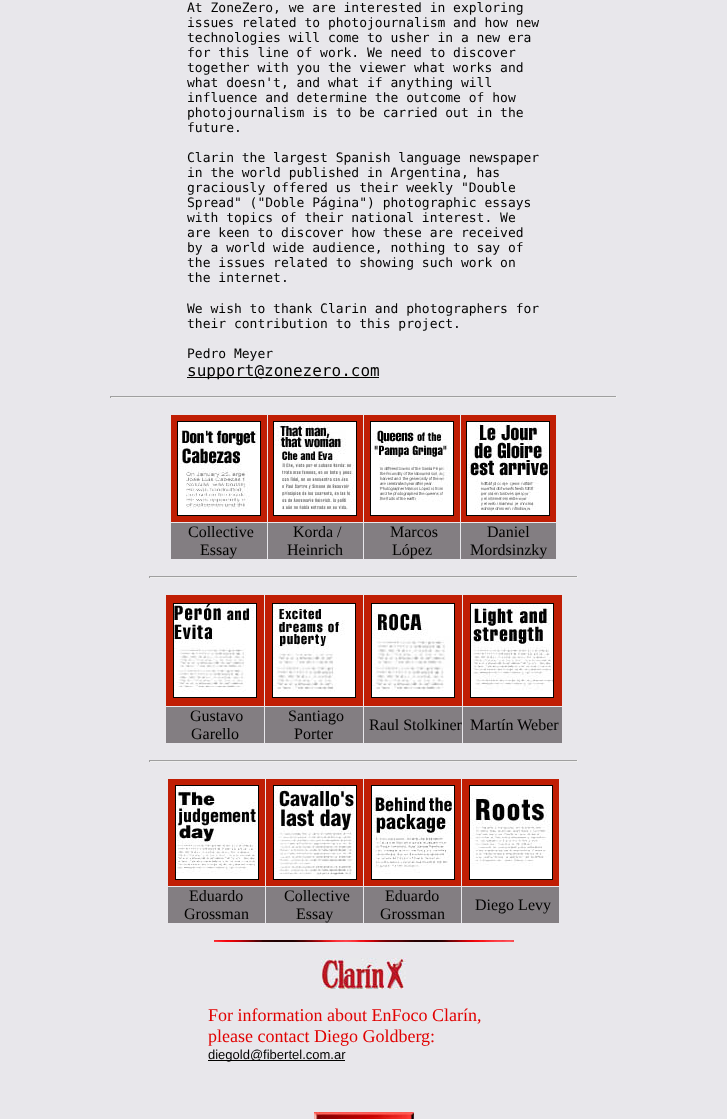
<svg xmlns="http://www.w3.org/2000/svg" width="727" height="1119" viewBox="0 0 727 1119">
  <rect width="100%" height="100%" fill="rgb(232,231,235)"/>
  <g font-family="DejaVu Sans Mono" font-size="13" fill="rgb(2,2,0)">
    <text>
      <tspan x="187" y="12">At ZoneZero, we are interested in exploring</tspan>
      <tspan x="187" y="27">issues related to photojournalism and how new</tspan>
      <tspan x="187" y="42">technologies will come to usher in a new era</tspan>
      <tspan x="187" y="57">for this line of work. We need to discover</tspan>
      <tspan x="187" y="72">together with you the viewer what works and</tspan>
      <tspan x="187" y="87">what doesn't, and what if anything will</tspan>
      <tspan x="187" y="102">influence and determine the outcome of how</tspan>
      <tspan x="187" y="117">photojournalism is to be carried out in the</tspan>
      <tspan x="187" y="132">future.</tspan>
    </text>
    <text>
      <tspan x="187" y="162">Clarin the largest Spanish language newspaper</tspan>
      <tspan x="187" y="177">in the world published in Argentina, has</tspan>
      <tspan x="187" y="192">graciously offered us their weekly "Double</tspan>
      <tspan x="187" y="207">Spread" ("Doble Página") photographic essays</tspan>
      <tspan x="187" y="222">with topics of their national interest. We</tspan>
      <tspan x="187" y="237">are keen to discover how these are received</tspan>
      <tspan x="187" y="252">by a world wide audience, nothing to say of</tspan>
      <tspan x="187" y="267">the issues related to showing such work on</tspan>
      <tspan x="187" y="282">the internet.</tspan>
    </text>
    <text>
      <tspan x="187" y="313">We wish to thank Clarin and photographers for</tspan>
      <tspan x="187" y="328">their contribution to this project.</tspan>
    </text>
    <text x="187" y="358">Pedro Meyer</text>
  </g>
  <rect x="187" y="377" width="192" height="1" fill="rgb(2,2,0)"/>
  <text x="187" y="376" font-family="DejaVu Sans Mono" font-size="16" fill="rgb(2,2,0)">support@zonezero.com</text>
  <rect x="110" y="396" width="507" height="1" fill="rgb(159,159,159)"/>
  <rect x="616" y="396" width="1" height="2" fill="rgb(238,238,238)"/>
  <rect x="110" y="397" width="507" height="1" fill="rgb(238,238,238)"/>
  <rect x="110" y="396" width="1" height="2" fill="rgb(159,159,159)"/>
  <rect x="171" y="415" width="96" height="107" fill="rgb(192,30,4)"/>
  <rect x="177.5" y="421.5" width="83" height="94" fill="none" stroke="rgb(2,2,0)"/>
  <image x="178" y="422" width="82" height="93" href="pic1.png"/>
  <rect x="268" y="415" width="95" height="107" fill="rgb(192,30,4)"/>
  <rect x="273.5" y="421.5" width="83" height="94" fill="none" stroke="rgb(2,2,0)"/>
  <image x="274" y="422" width="82" height="93" href="pic2.png"/>
  <rect x="364" y="415" width="96" height="107" fill="rgb(192,30,4)"/>
  <rect x="370.5" y="421.5" width="83" height="94" fill="none" stroke="rgb(2,2,0)"/>
  <image x="371" y="422" width="82" height="93" href="pic3.png"/>
  <rect x="461" y="415" width="95" height="107" fill="rgb(192,30,4)"/>
  <rect x="466.5" y="421.5" width="83" height="94" fill="none" stroke="rgb(2,2,0)"/>
  <image x="467" y="422" width="82" height="93" href="pic4.png"/>
  <rect x="171" y="523" width="96" height="36" fill="rgb(131,126,130)"/>
  <g font-family="Liberation Serif" font-size="16" fill="rgb(2,2,0)">
    <text x="188" y="537">Collective</text>
    <text x="200" y="555">Essay</text>
  </g>
  <rect x="268" y="523" width="95" height="36" fill="rgb(131,126,130)"/>
  <g font-family="Liberation Serif" font-size="16" fill="rgb(2,2,0)">
    <text x="293" y="537">Korda /</text>
    <text x="287" y="555">Heinrich</text>
  </g>
  <rect x="364" y="523" width="96" height="36" fill="rgb(131,126,130)"/>
  <g font-family="Liberation Serif" font-size="16" fill="rgb(2,2,0)">
    <text x="390" y="537">Marcos</text>
    <text x="392" y="555">López</text>
  </g>
  <rect x="461" y="523" width="95" height="36" fill="rgb(131,126,130)"/>
  <g font-family="Liberation Serif" font-size="16" fill="rgb(2,2,0)">
    <text x="487" y="537">Daniel</text>
    <text x="470" y="555">Mordsinzky</text>
  </g>
  <rect x="149" y="576" width="429" height="1" fill="rgb(159,159,159)"/>
  <rect x="577" y="576" width="1" height="2" fill="rgb(238,238,238)"/>
  <rect x="149" y="577" width="429" height="1" fill="rgb(238,238,238)"/>
  <rect x="149" y="576" width="1" height="2" fill="rgb(159,159,159)"/>
  <rect x="166" y="595" width="98" height="111" fill="rgb(192,30,4)"/>
  <rect x="173.5" y="603.5" width="83" height="94" fill="none" stroke="rgb(2,2,0)"/>
  <image x="174" y="604" width="82" height="93" href="pic5.png"/>
  <rect x="265" y="595" width="98" height="111" fill="rgb(192,30,4)"/>
  <rect x="272.5" y="603.5" width="83" height="94" fill="none" stroke="rgb(2,2,0)"/>
  <image x="273" y="604" width="82" height="93" href="pic6.png"/>
  <rect x="364" y="595" width="98" height="111" fill="rgb(192,30,4)"/>
  <rect x="371.5" y="603.5" width="83" height="94" fill="none" stroke="rgb(2,2,0)"/>
  <image x="372" y="604" width="82" height="93" href="pic7.png"/>
  <rect x="463" y="595" width="99" height="111" fill="rgb(192,30,4)"/>
  <rect x="470.5" y="603.5" width="83" height="94" fill="none" stroke="rgb(2,2,0)"/>
  <image x="471" y="604" width="82" height="93" href="pic8.png"/>
  <rect x="166" y="707" width="98" height="36" fill="rgb(131,126,130)"/>
  <g font-family="Liberation Serif" font-size="16" fill="rgb(2,2,0)">
    <text x="190" y="721">Gustavo</text>
    <text x="191" y="739">Garello</text>
  </g>
  <rect x="265" y="707" width="98" height="36" fill="rgb(131,126,130)"/>
  <g font-family="Liberation Serif" font-size="16" fill="rgb(2,2,0)">
    <text x="288" y="721">Santiago</text>
    <text x="294" y="739">Porter</text>
  </g>
  <rect x="364" y="707" width="98" height="36" fill="rgb(131,126,130)"/>
  <text x="369" y="730" font-family="Liberation Serif" font-size="16" fill="rgb(2,2,0)">Raul Stolkiner</text>
  <rect x="463" y="707" width="99" height="36" fill="rgb(131,126,130)"/>
  <text x="470" y="730" font-family="Liberation Serif" font-size="16" fill="rgb(2,2,0)">Martín Weber</text>
  <rect x="149" y="760" width="429" height="1" fill="rgb(159,159,159)"/>
  <rect x="577" y="760" width="1" height="2" fill="rgb(238,238,238)"/>
  <rect x="149" y="761" width="429" height="1" fill="rgb(238,238,238)"/>
  <rect x="149" y="760" width="1" height="2" fill="rgb(159,159,159)"/>
  <rect x="168" y="779" width="97" height="107" fill="rgb(192,30,4)"/>
  <rect x="175.5" y="785.5" width="83" height="94" fill="none" stroke="rgb(2,2,0)"/>
  <image x="176" y="786" width="82" height="93" href="pic9.png"/>
  <rect x="266" y="779" width="97" height="107" fill="rgb(192,30,4)"/>
  <rect x="273.5" y="785.5" width="83" height="94" fill="none" stroke="rgb(2,2,0)"/>
  <image x="274" y="786" width="82" height="93" href="pic10.png"/>
  <rect x="364" y="779" width="97" height="107" fill="rgb(192,30,4)"/>
  <rect x="371.5" y="785.5" width="83" height="94" fill="none" stroke="rgb(2,2,0)"/>
  <image x="372" y="786" width="82" height="93" href="pic11.png"/>
  <rect x="462" y="779" width="97" height="107" fill="rgb(192,30,4)"/>
  <rect x="469.5" y="785.5" width="83" height="94" fill="none" stroke="rgb(2,2,0)"/>
  <image x="470" y="786" width="82" height="93" href="pic12.png"/>
  <rect x="168" y="887" width="97" height="36" fill="rgb(131,126,130)"/>
  <g font-family="Liberation Serif" font-size="16" fill="rgb(2,2,0)">
    <text x="189" y="901">Eduardo</text>
    <text x="184" y="919">Grossman</text>
  </g>
  <rect x="266" y="887" width="97" height="36" fill="rgb(131,126,130)"/>
  <g font-family="Liberation Serif" font-size="16" fill="rgb(2,2,0)">
    <text x="284" y="901">Collective</text>
    <text x="296" y="919">Essay</text>
  </g>
  <rect x="364" y="887" width="97" height="36" fill="rgb(131,126,130)"/>
  <g font-family="Liberation Serif" font-size="16" fill="rgb(2,2,0)">
    <text x="385" y="901">Eduardo</text>
    <text x="380" y="919">Grossman</text>
  </g>
  <rect x="462" y="887" width="97" height="36" fill="rgb(131,126,130)"/>
  <text x="475" y="910" font-family="Liberation Serif" font-size="16" fill="rgb(2,2,0)">Diego Levy</text>
  <image x="214" y="940" width="300" height="2" href="pic13.png"/>
  <image x="321" y="958" width="85" height="31" href="pic14.png"/>
  <g font-family="Liberation Serif" font-size="18" fill="rgb(225,0,0)">
    <text>
      <tspan x="208" y="1021">For information about EnFoco Clarín,</tspan>
      <tspan x="208" y="1042">please contact Diego Goldberg:</tspan>
    </text>
  </g>
  <rect x="208" y="1060" width="137" height="1" fill="rgb(2,2,0)"/>
  <text x="208" y="1059" font-family="Liberation Sans" font-size="13" fill="rgb(2,2,0)">diegold@fibertel.com.ar</text>
  <image x="314" y="1112" width="100" height="7" href="pic15.png"/>
</svg>
